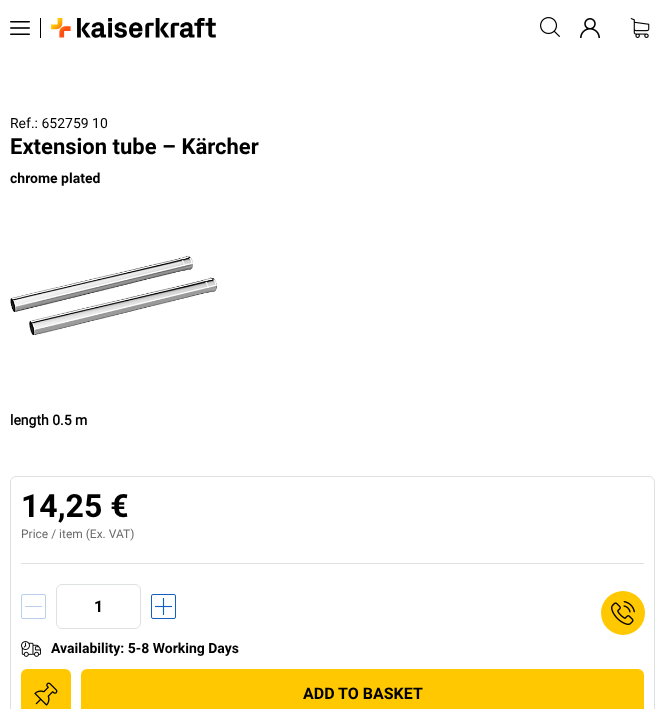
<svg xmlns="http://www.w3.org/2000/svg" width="665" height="709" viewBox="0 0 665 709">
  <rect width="100%" height="100%" fill="rgb(255,255,255)"/>
  <rect x="40" y="18" width="1" height="20" fill="rgb(0,0,0)"/>
  <image x="10" y="21" width="20" height="14" href="pic1.png"/>
  <image x="51" y="18" width="165" height="20" href="pic2.png"/>
  <image x="540" y="17" width="20" height="20" href="pic3.png"/>
  <image x="580" y="18" width="20" height="20" href="pic4.png"/>
  <image x="630" y="18" width="20" height="20" href="pic5.png"/>
  <text x="10" y="128" font-family="Roboto" font-size="14" fill="rgb(0,0,0)">Ref.: 652759 10</text>
  <text x="10" y="154" font-family="Roboto" font-size="22" font-weight="bold" fill="rgb(0,0,0)">Extension tube – Kärcher</text>
  <text x="10" y="183" font-family="Roboto" font-size="14" font-weight="bold" fill="rgb(0,0,0)">chrome plated</text>
  <image x="10" y="255" width="207" height="81" href="pic6.png"/>
  <text x="10" y="425" font-family="'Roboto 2'" font-size="14" font-weight="bold" fill="rgb(0,0,0)">length 0.5 m</text>
  <rect x="10.5" y="476.5" width="644" height="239" rx="5.5" fill="none" stroke="rgb(221,225,226)"/>
  <text x="21" y="517" font-family="Roboto" font-size="32" font-weight="bold" fill="rgb(0,0,0)">14,25 €</text>
  <text x="21" y="538" font-family="Roboto" font-size="12" fill="rgb(107,107,107)">Price / item (Ex. VAT)</text>
  <rect x="21" y="563" width="623" height="1" fill="rgb(221,225,226)"/>
  <rect x="21.5" y="594.5" width="24" height="24" rx="1.5" fill="none" stroke="rgb(185,207,237)"/>
  <rect x="25" y="606" width="17" height="1" fill="rgb(185,207,237)"/>
  <rect x="56.5" y="584.5" width="84" height="44" rx="5.5" fill="none" stroke="rgb(221,225,226)"/>
  <text x="94" y="612" font-family="Roboto" font-size="16" font-weight="bold" fill="rgb(0,0,0)">1</text>
  <rect x="151.5" y="594.5" width="24" height="24" rx="1.5" fill="none" stroke="rgb(20,95,195)"/>
  <image x="155" y="598" width="17" height="17" href="pic7.png"/>
  <image x="21" y="641" width="20" height="16" href="pic8.png"/>
  <text x="51" y="653" font-family="Roboto" font-size="14" font-weight="bold" fill="rgb(0,0,0)">Availability: 5-8 Working Days</text>
  <rect x="21" y="669" width="50" height="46" rx="6" fill="rgb(255,200,0)"/>
  <image x="34" y="682" width="24" height="24" href="pic9.png"/>
  <rect x="81" y="669" width="563" height="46" rx="6" fill="rgb(255,200,0)"/>
  <text x="303" y="699" font-family="Roboto" font-size="16" font-weight="bold" fill="rgb(0,0,0)">ADD TO BASKET</text>
  <circle cx="623" cy="613" r="22" fill="rgb(255,200,0)"/>
  <image x="611" y="601" width="24" height="24" href="pic10.png"/>
</svg>
